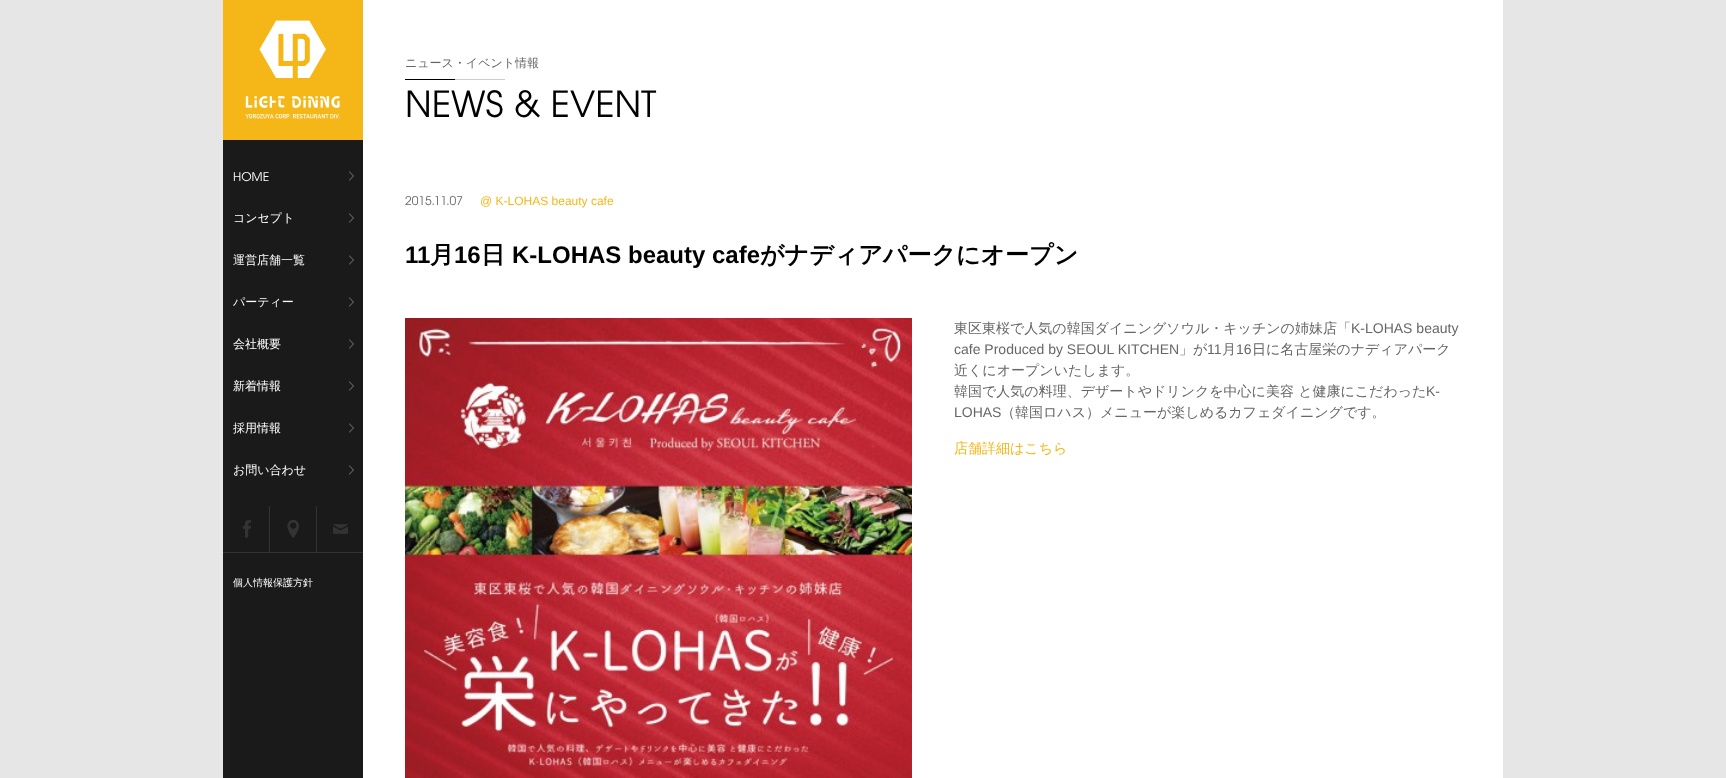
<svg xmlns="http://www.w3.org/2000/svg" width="1726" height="778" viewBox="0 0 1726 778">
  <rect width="100%" height="100%" fill="rgb(230,230,230)"/>
  <image x="223" y="0" width="1280" height="778" href="pic1.png"/>
  <image x="223" y="0" width="140" height="140" href="pic2.png"/>
  <image x="349" y="171" width="5" height="10" href="pic3.png"/>
  <text x="233" y="181" font-family="TeX Gyre Adventor" font-size="12" fill="rgb(255,255,255)">HOME</text>
  <image x="349" y="213" width="5" height="10" href="pic3.png"/>
  <text x="233" y="222" font-family="WenQuanYi Zen Hei" font-size="12" font-weight="500" fill="rgb(255,255,255)">コンセプト</text>
  <image x="349" y="255" width="5" height="10" href="pic3.png"/>
  <text x="233" y="264" font-family="WenQuanYi Zen Hei" font-size="12" font-weight="500" fill="rgb(255,255,255)">運営店舗一覧</text>
  <image x="349" y="297" width="5" height="10" href="pic3.png"/>
  <text x="233" y="306" font-family="WenQuanYi Zen Hei" font-size="12" font-weight="500" fill="rgb(255,255,255)">パーティー</text>
  <image x="349" y="339" width="5" height="10" href="pic3.png"/>
  <text x="233" y="348" font-family="WenQuanYi Zen Hei" font-size="12" font-weight="500" fill="rgb(255,255,255)">会社概要</text>
  <image x="349" y="381" width="5" height="10" href="pic3.png"/>
  <text x="233" y="390" font-family="WenQuanYi Zen Hei" font-size="12" font-weight="500" fill="rgb(255,255,255)">新着情報</text>
  <image x="349" y="423" width="5" height="10" href="pic3.png"/>
  <text x="233" y="432" font-family="WenQuanYi Zen Hei" font-size="12" font-weight="500" fill="rgb(255,255,255)">採用情報</text>
  <image x="349" y="465" width="5" height="10" href="pic3.png"/>
  <text x="233" y="474" font-family="WenQuanYi Zen Hei" font-size="12" font-weight="500" fill="rgb(255,255,255)">お問い合わせ</text>
  <rect x="223" y="552" width="140" height="1" fill="rgb(51,51,51)"/>
  <rect x="269" y="506" width="1" height="46" fill="rgb(51,51,51)"/>
  <image x="242" y="520" width="9" height="18" href="pic4.png"/>
  <rect x="316" y="506" width="1" height="46" fill="rgb(51,51,51)"/>
  <image x="287" y="519" width="12" height="19" href="pic5.png"/>
  <image x="333" y="524" width="15" height="10" href="pic6.png"/>
  <text x="233" y="586" font-family="WenQuanYi Zen Hei" font-size="10" font-weight="500" fill="rgb(255,255,255)">個人情報保護方針</text>
  <image x="405" y="79" width="100" height="1" href="pic7.png"/>
  <text x="405" y="67" font-family="WenQuanYi Zen Hei" font-size="12" font-weight="500" fill="rgb(102,102,102)">ニュース・イベント情報</text>
  <text x="405" y="117" font-family="TeX Gyre Adventor" font-size="36" fill="rgb(0,0,0)">NEWS &amp; EVENT</text>
  <text x="405" y="205" font-family="TeX Gyre Adventor" font-size="12" fill="rgb(102,102,102)">2015.11.07</text>
  <text x="480" y="205" font-family="Liberation Sans" font-size="12" fill="rgb(245,183,23)">@ K-LOHAS beauty cafe</text>
  <text x="405" y="263" font-family="Liberation Sans" font-size="24" font-weight="bold" fill="rgb(0,0,0)">11</text>
  <text x="430" y="263" font-family="WenQuanYi Zen Hei" font-size="24" font-weight="bold" fill="rgb(0,0,0)">月</text>
  <text x="454" y="263" font-family="Liberation Sans" font-size="24" font-weight="bold" fill="rgb(0,0,0)">16</text>
  <text x="481" y="263" font-family="WenQuanYi Zen Hei" font-size="24" font-weight="bold" fill="rgb(0,0,0)">日</text>
  <text x="512" y="263" font-family="Liberation Sans" font-size="24" font-weight="bold" fill="rgb(0,0,0)">K-LOHAS beauty cafe</text>
  <text x="760" y="263" font-family="WenQuanYi Zen Hei" font-size="24" font-weight="bold" fill="rgb(0,0,0)">がナディアパークにオープン</text>
  <image x="405" y="318" width="507" height="460" href="pic8.png"/>
  <text x="954" y="333" font-family="WenQuanYi Zen Hei" font-size="14" font-weight="500" fill="rgb(102,102,102)">東区東桜で人気の韓国ダイニングソウル・キッチンの姉妹店「</text>
  <g font-family="Liberation Sans" font-size="14" fill="rgb(102,102,102)">
    <text x="1351" y="333">K-LOHAS beauty</text>
    <text x="954" y="354">cafe Produced by SEOUL KITCHEN</text>
  </g>
  <text x="1179" y="354" font-family="WenQuanYi Zen Hei" font-size="14" font-weight="500" fill="rgb(102,102,102)">」が</text>
  <text x="1207" y="354" font-family="Liberation Sans" font-size="14" fill="rgb(102,102,102)">11</text>
  <text x="1222" y="354" font-family="WenQuanYi Zen Hei" font-size="14" font-weight="500" fill="rgb(102,102,102)">月</text>
  <text x="1236" y="354" font-family="Liberation Sans" font-size="14" fill="rgb(102,102,102)">16</text>
  <g font-family="WenQuanYi Zen Hei" font-size="14" font-weight="500" fill="rgb(102,102,102)">
    <text x="1252" y="354">日に名古屋栄のナディアパーク</text>
    <text>
      <tspan x="954" y="375">近くにオープンいたします。</tspan>
      <tspan x="954" y="396">韓国で人気の料理、デザートやドリンクを中心に美容 と健康にこだわった</tspan>
    </text>
  </g>
  <g font-family="Liberation Sans" font-size="14" fill="rgb(102,102,102)">
    <text x="1426" y="396">K-</text>
    <text x="954" y="417">LOHAS</text>
  </g>
  <text x="1001" y="417" font-family="WenQuanYi Zen Hei" font-size="14" font-weight="500" fill="rgb(102,102,102)">（韓国ロハス）メニューが楽しめるカフェダイニングです。</text>
  <text x="954" y="453" font-family="WenQuanYi Zen Hei" font-size="14" font-weight="500" fill="rgb(245,183,23)">店舗詳細はこちら</text>
</svg>
